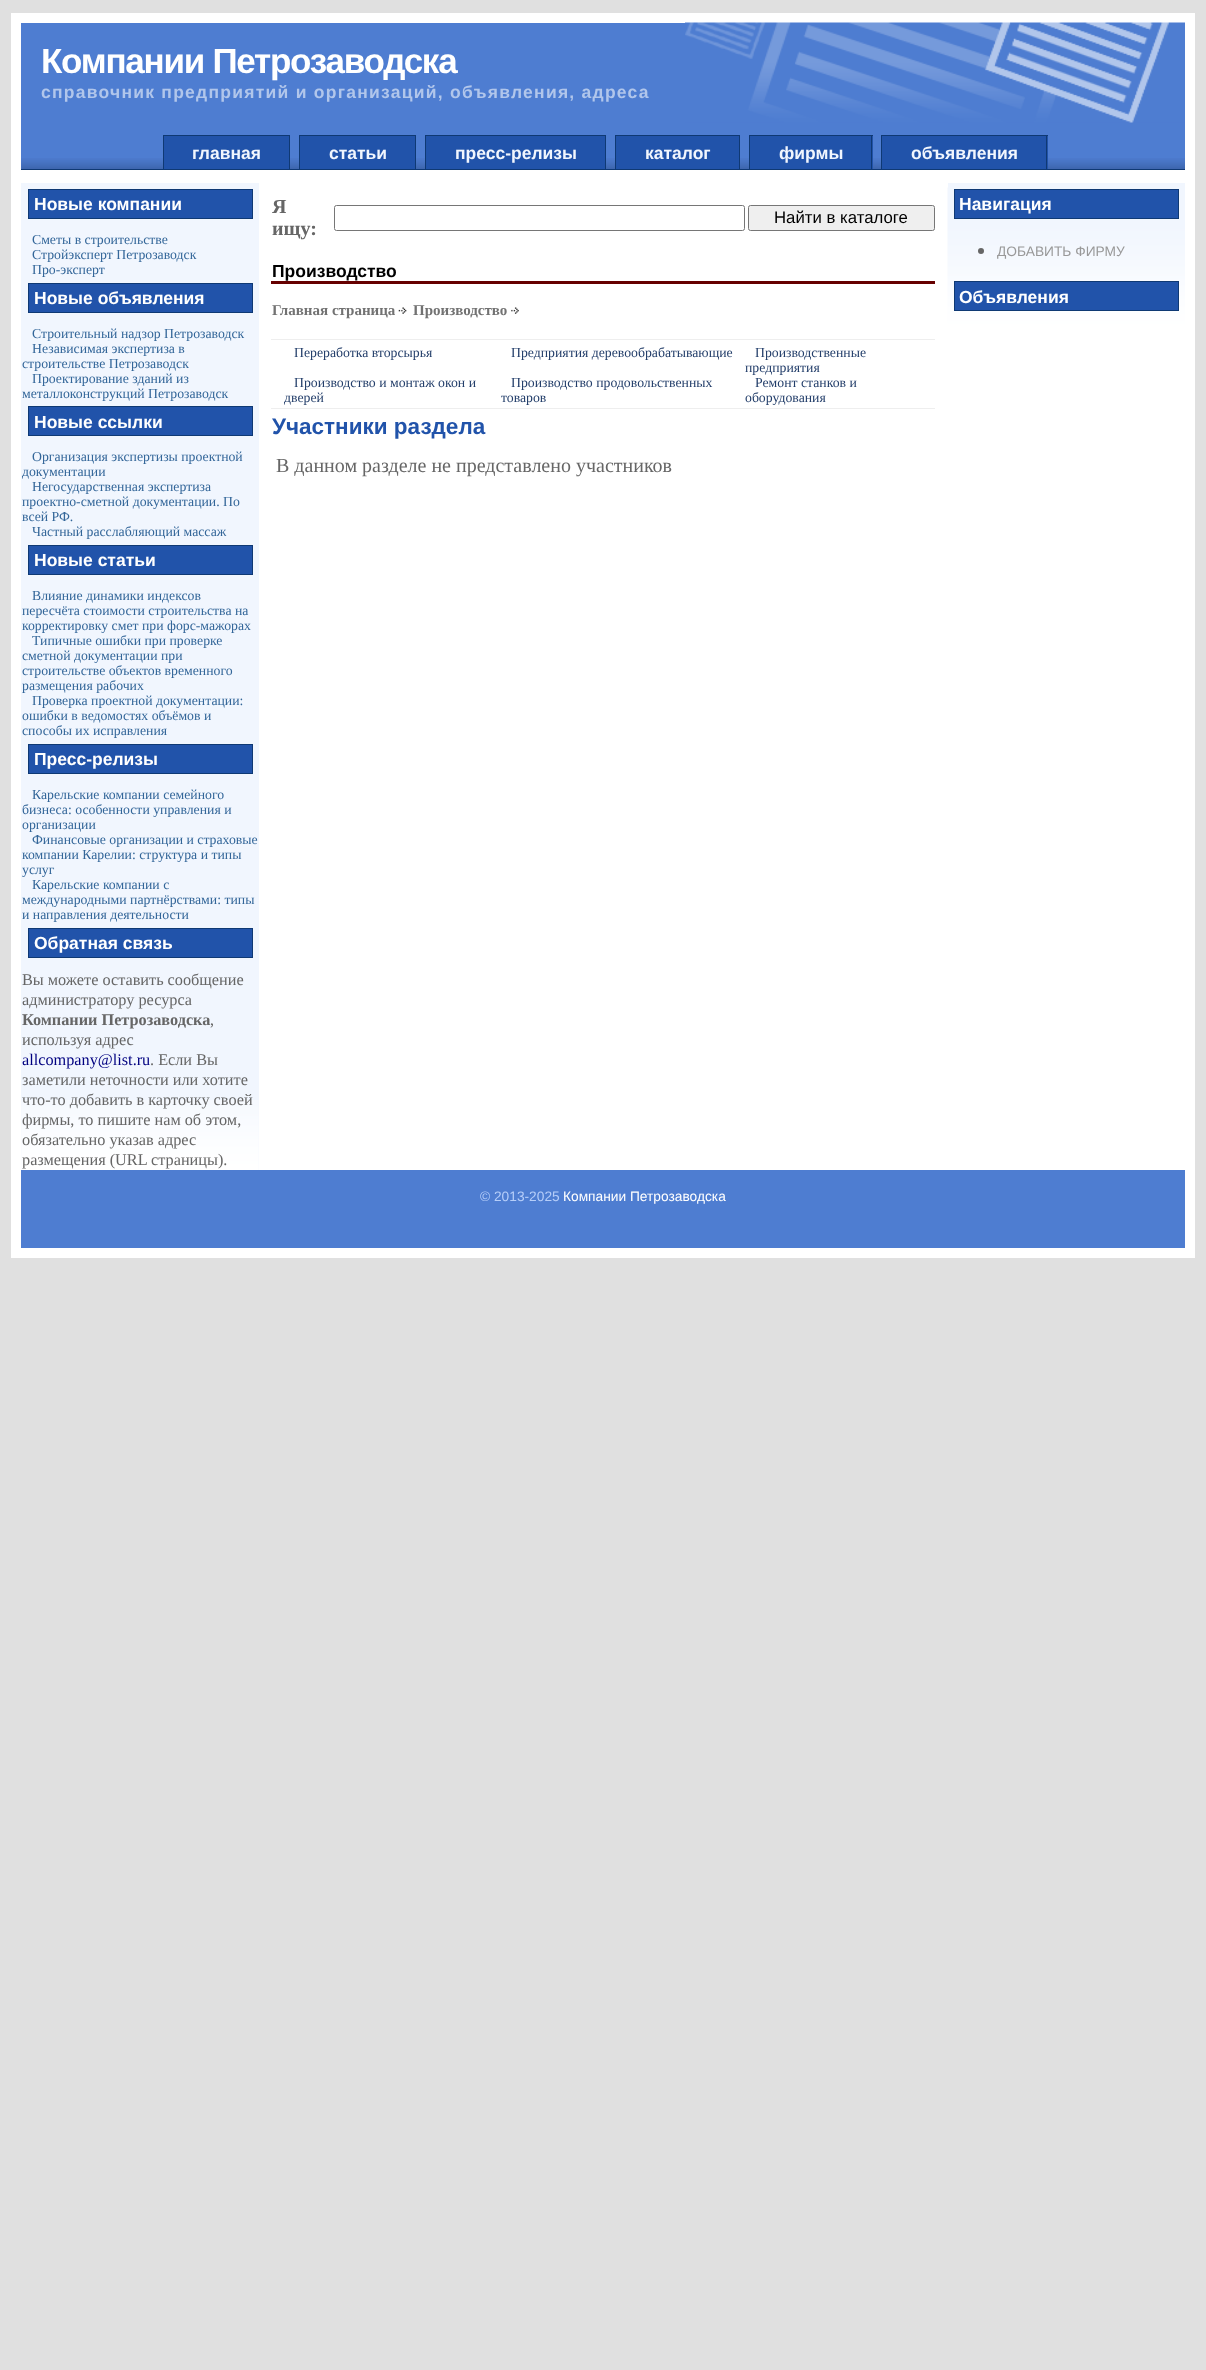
<svg xmlns="http://www.w3.org/2000/svg" width="1206" height="2370" viewBox="0 0 1206 2370">
  <rect width="100%" height="100%" fill="rgb(224,224,224)"/>
  <rect x="11" y="13" width="1184" height="1245" fill="rgb(255,255,255)"/>
  <rect x="21" y="23" width="1164" height="146" fill="rgb(78,125,209)"/>
  <image x="21" y="158" width="1164" height="11" href="pic1.png"/>
  <image x="685" y="22" width="500" height="101" href="pic2.png"/>
  <text x="41" y="73" font-family="Liberation Sans" font-size="35" font-weight="bold" letter-spacing="-1.25" fill="rgb(255,255,255)">Компании Петрозаводска</text>
  <text x="41" y="98" font-family="Liberation Sans" font-size="17.5" font-weight="bold" letter-spacing="1.25" fill="rgb(177,198,235)">справочник предприятий и организаций, объявления, адреса</text>
  <rect x="21" y="169" width="1164" height="1" fill="rgb(15,57,116)"/>
  <rect x="164" y="136" width="125" height="33" fill="rgb(33,83,170)"/>
  <text x="192" y="159" font-family="Liberation Sans" font-size="17.5" font-weight="bold" fill="rgb(241,246,254)">главная</text>
  <rect x="163" y="135" width="127" height="1" fill="rgb(15,57,116)"/>
  <rect x="289" y="135" width="1" height="34" fill="rgb(15,57,116)"/>
  <rect x="163" y="135" width="1" height="34" fill="rgb(15,57,116)"/>
  <rect x="300" y="136" width="115" height="33" fill="rgb(33,83,170)"/>
  <text x="329" y="159" font-family="Liberation Sans" font-size="17.5" font-weight="bold" fill="rgb(241,246,254)">статьи</text>
  <rect x="299" y="135" width="117" height="1" fill="rgb(15,57,116)"/>
  <rect x="415" y="135" width="1" height="34" fill="rgb(15,57,116)"/>
  <rect x="299" y="135" width="1" height="34" fill="rgb(15,57,116)"/>
  <rect x="426" y="136" width="179" height="33" fill="rgb(33,83,170)"/>
  <text x="455" y="159" font-family="Liberation Sans" font-size="17.5" font-weight="bold" fill="rgb(241,246,254)">пресс-релизы</text>
  <rect x="425" y="135" width="181" height="1" fill="rgb(15,57,116)"/>
  <rect x="605" y="135" width="1" height="34" fill="rgb(15,57,116)"/>
  <rect x="425" y="135" width="1" height="34" fill="rgb(15,57,116)"/>
  <rect x="616" y="136" width="123" height="33" fill="rgb(33,83,170)"/>
  <text x="645" y="159" font-family="Liberation Sans" font-size="17.5" font-weight="bold" fill="rgb(241,246,254)">каталог</text>
  <rect x="615" y="135" width="125" height="1" fill="rgb(15,57,116)"/>
  <rect x="739" y="135" width="1" height="34" fill="rgb(15,57,116)"/>
  <rect x="615" y="135" width="1" height="34" fill="rgb(15,57,116)"/>
  <rect x="750" y="136" width="123" height="33" fill="rgb(33,83,170)"/>
  <text x="779" y="159" font-family="Liberation Sans" font-size="17.5" font-weight="bold" fill="rgb(241,246,254)">фирмы</text>
  <rect x="749" y="135" width="124" height="1" fill="rgb(15,57,116)"/>
  <rect x="871" y="135" width="1" height="34" fill="rgb(15,57,116)"/>
  <rect x="749" y="135" width="1" height="34" fill="rgb(15,57,116)"/>
  <rect x="882" y="136" width="166" height="33" fill="rgb(33,83,170)"/>
  <text x="911" y="159" font-family="Liberation Sans" font-size="17.5" font-weight="bold" fill="rgb(241,246,254)">объявления</text>
  <rect x="881" y="135" width="167" height="1" fill="rgb(15,57,116)"/>
  <rect x="1046" y="135" width="1" height="34" fill="rgb(15,57,116)"/>
  <rect x="881" y="135" width="1" height="34" fill="rgb(15,57,116)"/>
  <rect x="21" y="183" width="238" height="987" fill="rgb(241,246,254)"/>
  <image x="21" y="1100" width="238" height="70" href="pic3.png"/>
  <rect x="28.5" y="189.5" width="224" height="29" fill="rgb(33,83,170)" stroke="rgb(15,57,116)"/>
  <text x="34" y="210" font-family="Liberation Sans" font-size="17.5" font-weight="bold" fill="rgb(255,255,255)">Новые компании</text>
  <g font-family="Liberation Serif" font-size="13.75" fill="rgb(51,102,153)">
    <text>
      <tspan x="32" y="244">Сметы в строительстве</tspan>
      <tspan x="32" y="259">Стройэксперт Петрозаводск</tspan>
      <tspan x="32" y="274">Про-эксперт</tspan>
    </text>
  </g>
  <rect x="28.5" y="283.5" width="224" height="29" fill="rgb(33,83,170)" stroke="rgb(15,57,116)"/>
  <text x="34" y="304" font-family="Liberation Sans" font-size="17.5" font-weight="bold" fill="rgb(255,255,255)">Новые объявления</text>
  <g font-family="Liberation Serif" font-size="13.75" fill="rgb(51,102,153)">
    <text>
      <tspan x="32" y="338">Строительный надзор Петрозаводск</tspan>
      <tspan x="32" y="353">Независимая экспертиза в</tspan>
    </text>
    <text x="22" y="368">строительстве Петрозаводск</text>
    <text x="32" y="383">Проектирование зданий из</text>
    <text x="22" y="398">металлоконструкций Петрозаводск</text>
  </g>
  <rect x="28.5" y="406.5" width="224" height="29" fill="rgb(33,83,170)" stroke="rgb(15,57,116)"/>
  <text x="34" y="428" font-family="Liberation Sans" font-size="17.5" font-weight="bold" fill="rgb(255,255,255)">Новые ссылки</text>
  <g font-family="Liberation Serif" font-size="13.75" fill="rgb(51,102,153)">
    <text x="32" y="461">Организация экспертизы проектной</text>
    <text x="22" y="476">документации</text>
    <text x="32" y="491">Негосударственная экспертиза</text>
    <text>
      <tspan x="22" y="506">проектно-сметной документации. По</tspan>
      <tspan x="22" y="521">всей РФ.</tspan>
    </text>
    <text x="32" y="536">Частный расслабляющий массаж</text>
  </g>
  <rect x="28.5" y="545.5" width="224" height="29" fill="rgb(33,83,170)" stroke="rgb(15,57,116)"/>
  <text x="34" y="566" font-family="Liberation Sans" font-size="17.5" font-weight="bold" fill="rgb(255,255,255)">Новые статьи</text>
  <g font-family="Liberation Serif" font-size="13.75" fill="rgb(51,102,153)">
    <text x="32" y="600">Влияние динамики индексов</text>
    <text>
      <tspan x="22" y="615">пересчёта стоимости строительства на</tspan>
      <tspan x="22" y="630">корректировку смет при форс-мажорах</tspan>
    </text>
    <text x="32" y="645">Типичные ошибки при проверке</text>
    <text>
      <tspan x="22" y="660">сметной документации при</tspan>
      <tspan x="22" y="675">строительстве объектов временного</tspan>
      <tspan x="22" y="690">размещения рабочих</tspan>
    </text>
    <text x="32" y="705">Проверка проектной документации:</text>
    <text>
      <tspan x="22" y="720">ошибки в ведомостях объёмов и</tspan>
      <tspan x="22" y="735">способы их исправления</tspan>
    </text>
  </g>
  <rect x="28.5" y="744.5" width="224" height="29" fill="rgb(33,83,170)" stroke="rgb(15,57,116)"/>
  <text x="34" y="765" font-family="Liberation Sans" font-size="17.5" font-weight="bold" fill="rgb(255,255,255)">Пресс-релизы</text>
  <g font-family="Liberation Serif" font-size="13.75" fill="rgb(51,102,153)">
    <text x="32" y="799">Карельские компании семейного</text>
    <text>
      <tspan x="22" y="814">бизнеса: особенности управления и</tspan>
      <tspan x="22" y="829">организации</tspan>
    </text>
    <text x="32" y="844">Финансовые организации и страховые</text>
    <text>
      <tspan x="22" y="859">компании Карелии: структура и типы</tspan>
      <tspan x="22" y="874">услуг</tspan>
    </text>
    <text x="32" y="889">Карельские компании с</text>
    <text>
      <tspan x="22" y="904">международными партнёрствами: типы</tspan>
      <tspan x="22" y="919">и направления деятельности</tspan>
    </text>
  </g>
  <rect x="28.5" y="928.5" width="224" height="29" fill="rgb(33,83,170)" stroke="rgb(15,57,116)"/>
  <text x="34" y="949" font-family="Liberation Sans" font-size="17.5" font-weight="bold" fill="rgb(255,255,255)">Обратная связь</text>
  <g font-family="Liberation Serif" font-size="16.25" fill="rgb(102,102,102)">
    <text>
      <tspan x="22" y="985">Вы можете оставить сообщение</tspan>
      <tspan x="22" y="1005">администратору ресурса</tspan>
    </text>
  </g>
  <text x="22" y="1025" font-family="Liberation Serif" font-size="16.25" font-weight="bold" fill="rgb(102,102,102)">Компании Петрозаводска</text>
  <g font-family="Liberation Serif" font-size="16.25" fill="rgb(102,102,102)">
    <text x="210" y="1025">,</text>
    <text x="22" y="1045">используя адрес</text>
  </g>
  <text x="22" y="1065" font-family="Liberation Serif" font-size="16.25" fill="rgb(0,0,128)">allcompany@list.ru</text>
  <g font-family="Liberation Serif" font-size="16.25" fill="rgb(102,102,102)">
    <text x="150" y="1065">. Если Вы</text>
    <text>
      <tspan x="22" y="1085">заметили неточности или хотите</tspan>
      <tspan x="22" y="1105">что-то добавить в карточку своей</tspan>
      <tspan x="22" y="1125">фирмы, то пишите нам об этом,</tspan>
      <tspan x="22" y="1145">обязательно указав адрес</tspan>
      <tspan x="22" y="1165">размещения (URL страницы).</tspan>
    </text>
  </g>
  <g font-family="Liberation Serif" font-size="20" font-weight="bold" fill="rgb(102,102,102)">
    <text>
      <tspan x="272" y="213">Я</tspan>
      <tspan x="272" y="235">ищу:</tspan>
    </text>
  </g>
  <rect x="334.5" y="205.5" width="410" height="25" rx="2" fill="none" stroke="rgb(118,118,118)"/>
  <rect x="748.5" y="205.5" width="186" height="25" rx="2" fill="rgb(239,239,239)" stroke="rgb(118,118,118)"/>
  <text x="774" y="223" font-family="Liberation Sans" font-size="16.75" fill="rgb(0,0,0)">Найти в каталоге</text>
  <rect x="271" y="281" width="664" height="3" fill="rgb(102,0,0)"/>
  <text x="272" y="277" font-family="Liberation Sans" font-size="17.5" font-weight="bold" fill="rgb(0,0,0)">Производство</text>
  <text x="272" y="315" font-family="Liberation Serif" font-size="15" font-weight="bold" fill="rgb(114,114,114)">Главная страница</text>
  <image x="398" y="307" width="9" height="7" href="pic4.png"/>
  <text x="413" y="315" font-family="Liberation Serif" font-size="15" font-weight="bold" fill="rgb(114,114,114)">Производство</text>
  <image x="511" y="307" width="8" height="7" href="pic5.png"/>
  <rect x="271" y="339" width="664" height="1" fill="rgb(238,238,238)"/>
  <rect x="271" y="408" width="664" height="1" fill="rgb(238,238,238)"/>
  <g font-family="Liberation Serif" font-size="13.75" fill="rgb(35,62,106)">
    <text x="294" y="357">Переработка вторсырья</text>
    <text x="511" y="357">Предприятия деревообрабатывающие</text>
    <text x="755" y="357">Производственные</text>
    <text x="745" y="372">предприятия</text>
    <text x="294" y="387">Производство и монтаж окон и</text>
    <text x="284" y="402">дверей</text>
    <text x="511" y="387">Производство продовольственных</text>
    <text x="501" y="402">товаров</text>
    <text x="755" y="387">Ремонт станков и</text>
    <text x="745" y="402">оборудования</text>
  </g>
  <text x="272" y="434" font-family="Liberation Sans" font-size="22.5" font-weight="bold" fill="rgb(33,83,170)">Участники раздела</text>
  <text x="276" y="472" font-family="Liberation Serif" font-size="20" fill="rgb(102,102,102)">В данном разделе не представлено участников</text>
  <rect x="948" y="183" width="237" height="5" fill="rgb(241,246,254)"/>
  <image x="947" y="187" width="238" height="143" href="pic6.png"/>
  <rect x="954.5" y="189.5" width="224" height="29" fill="rgb(33,83,170)" stroke="rgb(15,57,116)"/>
  <text x="959" y="210" font-family="Liberation Sans" font-size="17.5" font-weight="bold" fill="rgb(255,255,255)">Навигация</text>
  <circle cx="981" cy="251" r="3" fill="rgb(102,102,102)"/>
  <text x="997" y="256" font-family="Liberation Sans" font-size="13.75" fill="rgb(153,153,153)">ДОБАВИТЬ ФИРМУ</text>
  <rect x="954.5" y="281.5" width="224" height="29" fill="rgb(33,83,170)" stroke="rgb(15,57,116)"/>
  <text x="959" y="303" font-family="Liberation Sans" font-size="17.5" font-weight="bold" fill="rgb(255,255,255)">Объявления</text>
  <rect x="21" y="1170" width="1164" height="78" fill="rgb(78,125,209)"/>
  <text x="480" y="1201" font-family="Liberation Sans" font-size="13.75" fill="rgb(182,206,249)">© 2013-2025</text>
  <text x="563" y="1201" font-family="Liberation Sans" font-size="13.75" fill="rgb(255,255,255)">Компании Петрозаводска</text>
</svg>
